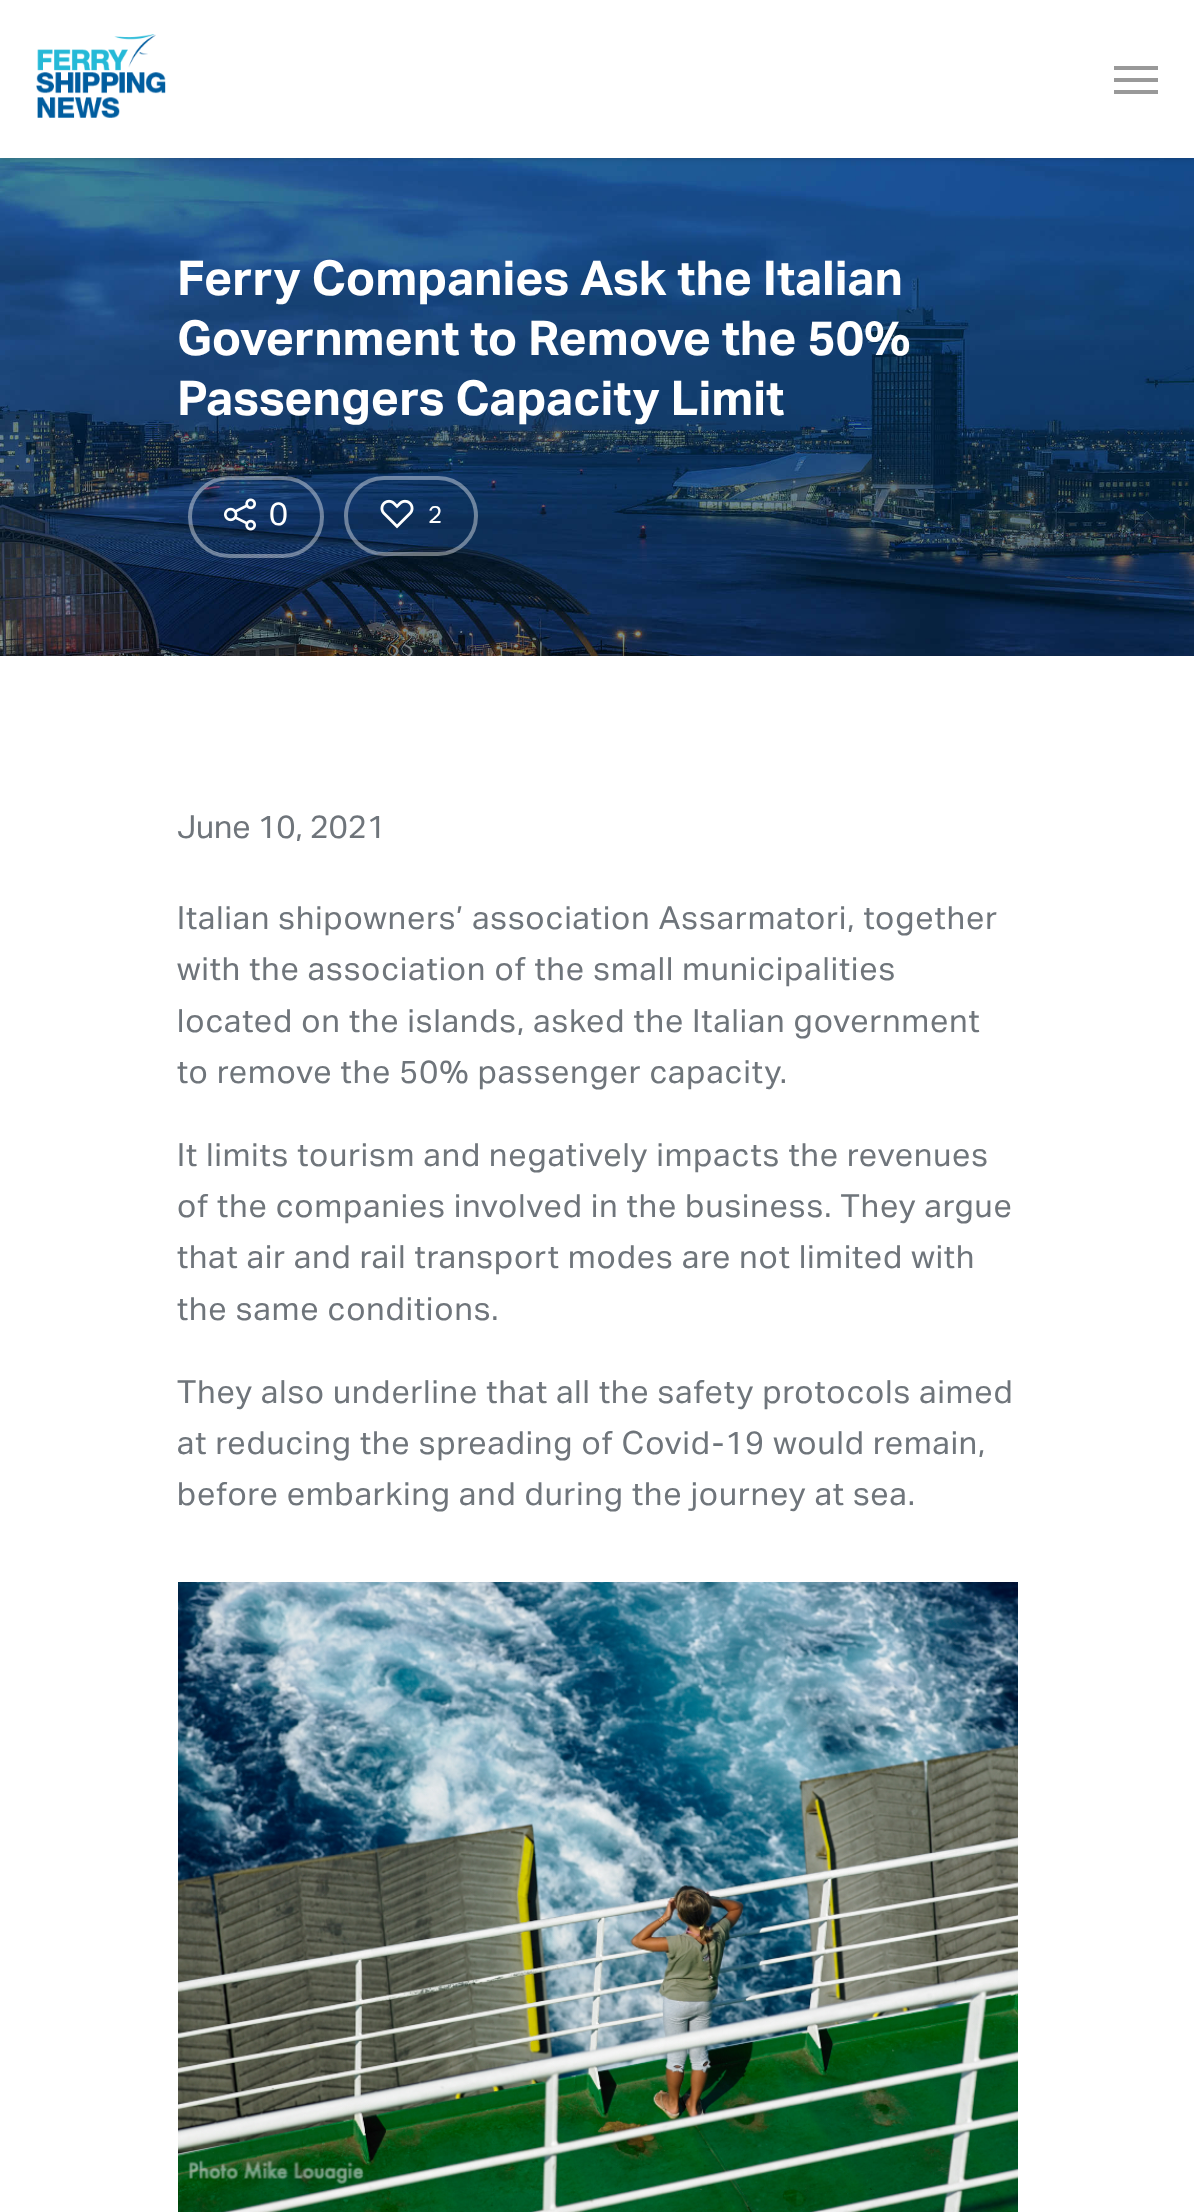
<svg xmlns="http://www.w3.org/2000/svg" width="1194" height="2212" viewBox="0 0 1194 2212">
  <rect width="100%" height="100%" fill="rgb(255,255,255)"/>
  <image x="0" y="158" width="1194" height="498" href="pic2.png"/>
  <rect x="0" y="0" width="1194" height="158" fill="rgba(0,0,0,0.22)" filter="blur(3px)"/>
  <rect x="0" y="0" width="1194" height="158" fill="rgb(255,255,255)"/>
  <image x="36" y="34" width="130" height="84" href="pic1.png"/>
  <rect x="1114" y="66" width="44" height="4" fill="rgb(153,153,153)"/>
  <rect x="1114" y="90" width="44" height="4" fill="rgb(153,153,153)"/>
  <rect x="1114" y="78" width="44" height="4" fill="rgb(153,153,153)"/>
  <g font-family="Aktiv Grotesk" font-size="48" font-weight="bold" fill="rgb(255,255,255)">
    <text>
      <tspan x="177" y="295">Ferry Companies Ask the Italian</tspan>
      <tspan x="177" y="355">Government to Remove the 50%</tspan>
      <tspan x="177" y="415">Passengers Capacity Limit</tspan>
    </text>
  </g>
  <rect x="190" y="478" width="132" height="78" rx="39" fill="none" stroke="rgba(255,255,255,0.4)" stroke-width="4"/>
  <image x="224" y="498" width="32" height="33" href="pic3.png"/>
  <text x="269" y="525" font-family="Aktiv Grotesk" font-size="32" fill="rgb(255,255,255)">0</text>
  <rect x="346" y="478" width="130" height="76" rx="38" fill="none" stroke="rgba(255,255,255,0.4)" stroke-width="4"/>
  <image x="380" y="499" width="34" height="30" href="pic4.png"/>
  <text x="428" y="523" font-family="Aktiv Grotesk" font-size="24" fill="rgb(255,255,255)">2</text>
  <text x="177" y="838" font-family="Aktiv Grotesk" font-size="32" fill="rgb(111,117,123)">June 10, 2021</text>
  <g font-family="Aktiv Grotesk" font-size="32" letter-spacing="1" fill="rgb(111,117,123)">
    <text>
      <tspan x="177" y="929">Italian shipowners’ association Assarmatori, together</tspan>
      <tspan x="177" y="980">with the association of the small municipalities</tspan>
      <tspan x="177" y="1032">located on the islands, asked the Italian government</tspan>
      <tspan x="177" y="1083">to remove the 50% passenger capacity.</tspan>
    </text>
    <text>
      <tspan x="177" y="1166">It limits tourism and negatively impacts the revenues</tspan>
      <tspan x="177" y="1217">of the companies involved in the business. They argue</tspan>
      <tspan x="177" y="1268">that air and rail transport modes are not limited with</tspan>
      <tspan x="177" y="1320">the same conditions.</tspan>
    </text>
    <text>
      <tspan x="177" y="1403">They also underline that all the safety protocols aimed</tspan>
      <tspan x="177" y="1454">at reducing the spreading of Covid-19 would remain,</tspan>
      <tspan x="177" y="1505">before embarking and during the journey at sea.</tspan>
    </text>
  </g>
  <image x="178" y="1582" width="840" height="630" href="pic5.png"/>
</svg>
